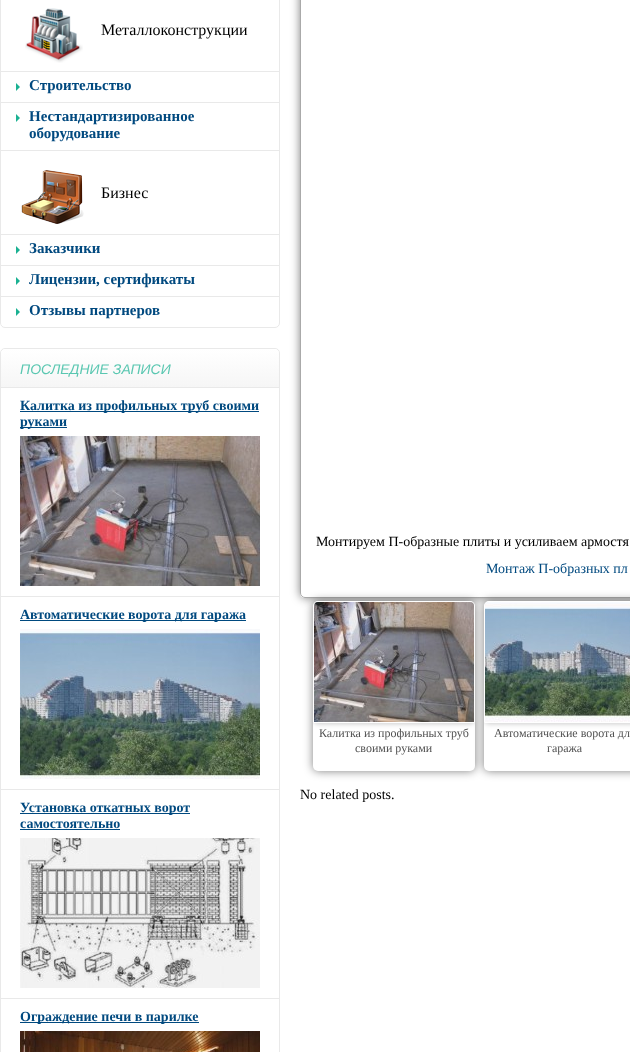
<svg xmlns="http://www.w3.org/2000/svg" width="630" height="1052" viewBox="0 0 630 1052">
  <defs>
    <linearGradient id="g1" gradientUnits="userSpaceOnUse" x1="140" y1="349" x2="140" y2="387"><stop offset="0.01" stop-color="rgb(255,255,255)"/><stop offset="1" stop-color="rgb(246,246,246)"/></linearGradient>
    <clipPath id="clip1"><path d="M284 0H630V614H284ZM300-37H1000V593C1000 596 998 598 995 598H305C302 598 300 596 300 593Z" clip-rule="evenodd"/></clipPath>
    <clipPath id="clip2"><rect x="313" y="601" width="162" height="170" rx="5"/></clipPath>
    <clipPath id="clip3"><rect x="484" y="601" width="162" height="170" rx="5"/></clipPath>
  </defs>
  <rect width="100%" height="100%" fill="rgb(255,255,255)"/>
  <rect x="0.5" y="-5.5" width="279" height="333" rx="4.5" fill="none" stroke="rgb(233,233,233)"/>
  <image x="25" y="8" width="58" height="55" href="pic1.png"/>
  <text x="101" y="35" font-family="Liberation Serif" font-size="16" fill="rgb(0,0,0)">Металлоконструкции</text>
  <rect x="1" y="71" width="278" height="1" fill="rgb(233,233,233)"/>
  <path d="M16 91V83L20 87Z" fill="rgb(26,177,146)"/>
  <text x="29" y="90" font-family="Liberation Serif" font-size="15" font-weight="bold" fill="rgb(0,73,127)">Строительство</text>
  <rect x="1" y="102" width="278" height="1" fill="rgb(233,233,233)"/>
  <rect x="1" y="150" width="278" height="1" fill="rgb(233,233,233)"/>
  <path d="M16 122V114L20 118Z" fill="rgb(26,177,146)"/>
  <g font-family="Liberation Serif" font-size="15" font-weight="bold" fill="rgb(0,73,127)">
    <text>
      <tspan x="29" y="121">Нестандартизированное</tspan>
      <tspan x="29" y="138">оборудование</tspan>
    </text>
  </g>
  <image x="21" y="170" width="63" height="54" href="pic2.png"/>
  <text x="101" y="198" font-family="Liberation Serif" font-size="16" fill="rgb(0,0,0)">Бизнес</text>
  <rect x="1" y="234" width="278" height="1" fill="rgb(233,233,233)"/>
  <path d="M16 254V246L20 250Z" fill="rgb(26,177,146)"/>
  <text x="29" y="253" font-family="Liberation Serif" font-size="15" font-weight="bold" fill="rgb(0,73,127)">Заказчики</text>
  <rect x="1" y="265" width="278" height="1" fill="rgb(233,233,233)"/>
  <path d="M16 285V277L20 281Z" fill="rgb(26,177,146)"/>
  <text x="29" y="284" font-family="Liberation Serif" font-size="15" font-weight="bold" fill="rgb(0,73,127)">Лицензии, сертификаты</text>
  <rect x="1" y="296" width="278" height="1" fill="rgb(233,233,233)"/>
  <path d="M16 316V308L20 312Z" fill="rgb(26,177,146)"/>
  <text x="29" y="315" font-family="Liberation Serif" font-size="15" font-weight="bold" fill="rgb(0,73,127)">Отзывы партнеров</text>
  <rect x="0.5" y="348.5" width="279" height="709" rx="4.5" fill="none" stroke="rgb(233,233,233)"/>
  <path d="M6 349H274C277 349 279 351 279 354V387H1V354C1 351 3 349 6 349Z" fill="url(#g1)"/>
  <rect x="1" y="387" width="278" height="1" fill="rgb(233,233,233)"/>
  <text x="20" y="374" font-family="Liberation Sans" font-size="14" font-style="italic" fill="rgb(90,199,177)">ПОСЛЕДНИЕ ЗАПИСИ</text>
  <rect x="1" y="596" width="278" height="1" fill="rgb(233,233,233)"/>
  <rect x="20" y="411" width="239" height="1" fill="rgb(0,73,127)"/>
  <text x="20" y="410" font-family="Liberation Serif" font-size="14" font-weight="bold" fill="rgb(0,73,127)">Калитка из профильных труб своими</text>
  <rect x="20" y="427" width="47" height="1" fill="rgb(0,73,127)"/>
  <text x="20" y="426" font-family="Liberation Serif" font-size="14" font-weight="bold" fill="rgb(0,73,127)">руками</text>
  <image x="20" y="436" width="240" height="150" href="pic3.png"/>
  <rect x="1" y="789" width="278" height="1" fill="rgb(233,233,233)"/>
  <rect x="20" y="620" width="226" height="1" fill="rgb(0,73,127)"/>
  <text x="20" y="619" font-family="Liberation Serif" font-size="14" font-weight="bold" fill="rgb(0,73,127)">Автоматические ворота для гаража</text>
  <image x="20" y="629" width="240" height="150" href="pic4.png"/>
  <rect x="1" y="998" width="278" height="1" fill="rgb(233,233,233)"/>
  <rect x="20" y="813" width="170" height="1" fill="rgb(0,73,127)"/>
  <g font-family="Liberation Serif" font-size="14" font-weight="bold" fill="rgb(0,73,127)">
    <text>
      <tspan x="20" y="812">Установка откатных ворот</tspan>
      <tspan x="20" y="828">самостоятельно</tspan>
    </text>
  </g>
  <rect x="20" y="829" width="100" height="1" fill="rgb(0,73,127)"/>
  <image x="20" y="838" width="240" height="150" href="pic5.png"/>
  <rect x="20" y="1022" width="179" height="1" fill="rgb(0,73,127)"/>
  <text x="20" y="1021" font-family="Liberation Serif" font-size="14" font-weight="bold" fill="rgb(0,73,127)">Ограждение печи в парилке</text>
  <image x="20" y="1031" width="240" height="21" href="pic6.png"/>
  <g clip-path="url(#clip1)">
    <rect x="300" y="-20" width="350" height="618" rx="5" fill="rgba(0,0,0,0.5)" filter="blur(5px)"/>
  </g>
  <path d="M300.5-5.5H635.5V593C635.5 595.5 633.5 597.5 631 597.5H305C302.5 597.5 300.5 595.5 300.5 593Z" fill="none" stroke="rgb(170,170,170)"/>
  <text x="316" y="546" font-family="Liberation Serif" font-size="14" fill="rgb(0,0,0)">Монтируем П-образные плиты и усиливаем армостя</text>
  <text x="486" y="573" font-family="Liberation Serif" font-size="14" fill="rgb(0,73,127)">Монтаж П-образных пл</text>
  <rect x="313" y="601" width="162" height="170" rx="5" fill="rgba(0,0,0,0.5)" filter="blur(5px)"/>
  <rect x="313" y="601" width="162" height="170" rx="5" fill="rgb(255,255,255)"/>
  <g clip-path="url(#clip2)">
    <rect x="313" y="602" width="162" height="122" rx="5" fill="rgba(0,0,0,0.2)" filter="blur(2.5px)"/>
  </g>
  <path d="M318 601.5H470C472.5 601.5 474.5 603.5 474.5 606V722.5H313.5V606C313.5 603.5 315.5 601.5 318 601.5Z" fill="none" stroke="rgb(255,255,255)"/>
  <image x="314" y="602" width="160" height="120" href="pic7.png"/>
  <g font-family="Liberation Serif" font-size="12" fill="rgb(82,82,82)">
    <text x="319" y="737">Калитка из профильных труб</text>
    <text x="355" y="752">своими руками</text>
  </g>
  <rect x="484" y="601" width="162" height="170" rx="5" fill="rgba(0,0,0,0.5)" filter="blur(5px)"/>
  <rect x="484" y="601" width="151" height="170" rx="5" fill="rgb(255,255,255)"/>
  <g clip-path="url(#clip3)">
    <rect x="484" y="602" width="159" height="122" rx="5" fill="rgba(0,0,0,0.2)" filter="blur(2.5px)"/>
  </g>
  <path d="M489 601.5H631C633.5 601.5 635.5 603.5 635.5 606V722.5H484.5V606C484.5 603.5 486.5 601.5 489 601.5Z" fill="none" stroke="rgb(255,255,255)"/>
  <image x="485" y="602" width="145" height="120" href="pic8.png"/>
  <g font-family="Liberation Serif" font-size="12" fill="rgb(82,82,82)">
    <text x="494" y="737">Автоматические ворота дл</text>
    <text x="547" y="752">гаража</text>
  </g>
  <text x="300" y="799" font-family="Liberation Serif" font-size="14" fill="rgb(0,0,0)">No related posts.</text>
</svg>
